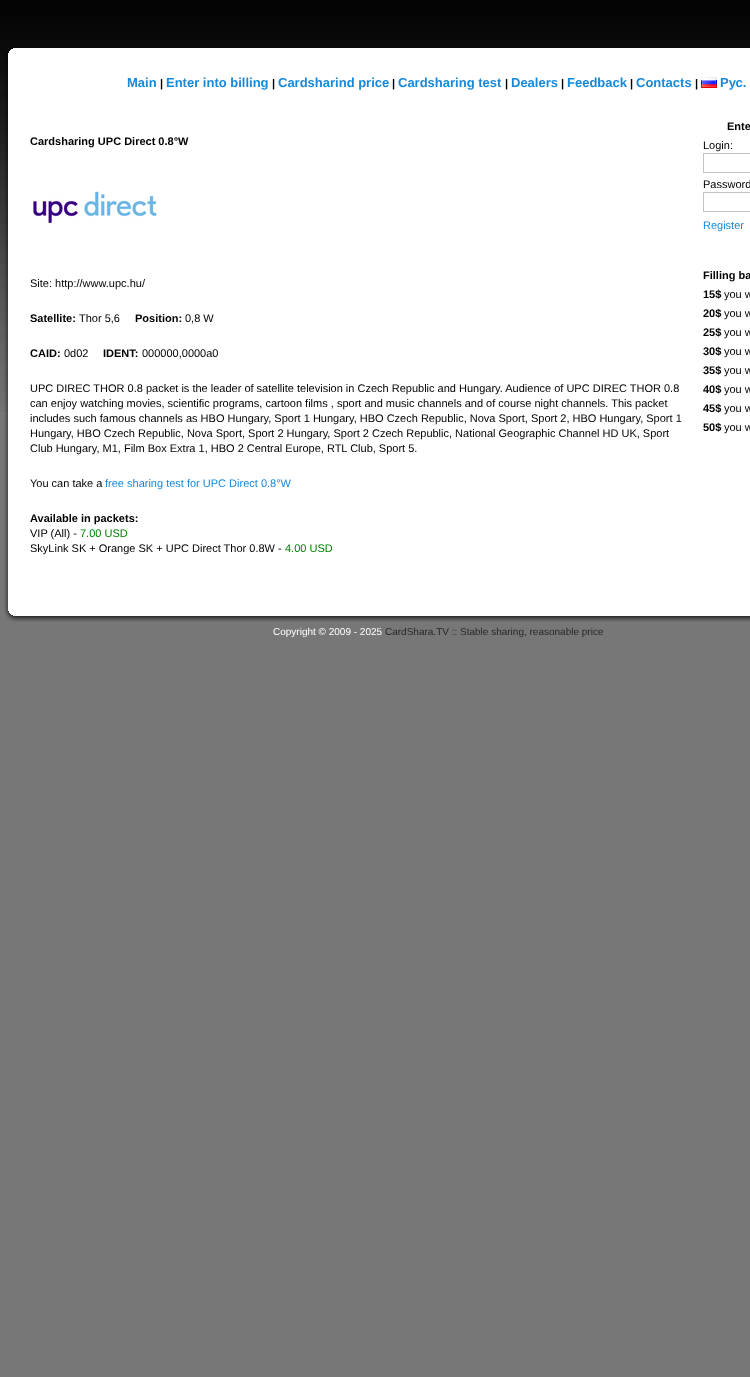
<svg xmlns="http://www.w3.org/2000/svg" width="750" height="1377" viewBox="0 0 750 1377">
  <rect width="100%" height="100%" fill="rgb(119,119,119)"/>
  <image x="0" y="0" width="750" height="412" href="pic1.png"/>
  <image x="9" y="48" width="741" height="5" href="pic2.png"/>
  <image x="4" y="53" width="746" height="558" href="pic3.png"/>
  <text x="127" y="87" font-family="Liberation Sans" font-size="13" font-weight="bold" fill="rgb(22,137,218)">Main</text>
  <text x="160" y="87" font-family="Liberation Sans" font-size="11" font-weight="bold" fill="rgb(0,0,0)">|</text>
  <text x="166" y="87" font-family="Liberation Sans" font-size="13" font-weight="bold" fill="rgb(22,137,218)">Enter into billing</text>
  <text x="272" y="87" font-family="Liberation Sans" font-size="11" font-weight="bold" fill="rgb(0,0,0)">|</text>
  <text x="278" y="87" font-family="Liberation Sans" font-size="13" font-weight="bold" fill="rgb(22,137,218)">Cardsharind price</text>
  <text x="392" y="87" font-family="Liberation Sans" font-size="11" font-weight="bold" fill="rgb(0,0,0)">|</text>
  <text x="398" y="87" font-family="Liberation Sans" font-size="13" font-weight="bold" fill="rgb(22,137,218)">Cardsharing test</text>
  <text x="505" y="87" font-family="Liberation Sans" font-size="11" font-weight="bold" fill="rgb(0,0,0)">|</text>
  <text x="511" y="87" font-family="Liberation Sans" font-size="13" font-weight="bold" fill="rgb(22,137,218)">Dealers</text>
  <text x="561" y="87" font-family="Liberation Sans" font-size="11" font-weight="bold" fill="rgb(0,0,0)">|</text>
  <text x="567" y="87" font-family="Liberation Sans" font-size="13" font-weight="bold" fill="rgb(22,137,218)">Feedback</text>
  <text x="630" y="87" font-family="Liberation Sans" font-size="11" font-weight="bold" fill="rgb(0,0,0)">|</text>
  <text x="636" y="87" font-family="Liberation Sans" font-size="13" font-weight="bold" fill="rgb(22,137,218)">Contacts</text>
  <text x="695" y="87" font-family="Liberation Sans" font-size="11" font-weight="bold" fill="rgb(0,0,0)">|</text>
  <image x="701" y="77" width="16" height="11" href="pic4.png"/>
  <text x="720" y="87" font-family="Liberation Sans" font-size="13" font-weight="bold" fill="rgb(22,137,218)">Рус.</text>
  <text x="30" y="145" font-family="Liberation Sans" font-size="11" font-weight="bold" fill="rgb(0,0,0)">Cardsharing UPC Direct 0.8°W</text>
  <image x="30" y="191" width="127" height="32" href="pic5.png"/>
  <text x="30" y="287" font-family="Liberation Sans" font-size="11" fill="rgb(0,0,0)">Site: http://www.upc.hu/</text>
  <text x="30" y="322" font-family="Liberation Sans" font-size="11" font-weight="bold" fill="rgb(0,0,0)">Satellite:</text>
  <text x="79" y="322" font-family="Liberation Sans" font-size="11" fill="rgb(0,0,0)">Thor 5,6</text>
  <text x="135" y="322" font-family="Liberation Sans" font-size="11" font-weight="bold" fill="rgb(0,0,0)">Position:</text>
  <text x="185" y="322" font-family="Liberation Sans" font-size="11" fill="rgb(0,0,0)">0,8 W</text>
  <text x="30" y="357" font-family="Liberation Sans" font-size="11" font-weight="bold" fill="rgb(0,0,0)">CAID:</text>
  <text x="64" y="357" font-family="Liberation Sans" font-size="11" fill="rgb(0,0,0)">0d02</text>
  <text x="103" y="357" font-family="Liberation Sans" font-size="11" font-weight="bold" fill="rgb(0,0,0)">IDENT:</text>
  <g font-family="Liberation Sans" font-size="11" fill="rgb(0,0,0)">
    <text x="142" y="357">000000,0000a0</text>
    <text>
      <tspan x="30" y="392">UPC DIREC THOR 0.8 packet is the leader of satellite television in Czech Republic and Hungary. Audience of UPC DIREC THOR 0.8</tspan>
      <tspan x="30" y="407">can enjoy watching movies, scientific programs, cartoon films , sport and music channels and of course night channels. This packet</tspan>
      <tspan x="30" y="422">includes such famous channels as HBO Hungary, Sport 1 Hungary, HBO Czech Republic, Nova Sport, Sport 2, HBO Hungary, Sport 1</tspan>
      <tspan x="30" y="437">Hungary, HBO Czech Republic, Nova Sport, Sport 2 Hungary, Sport 2 Czech Republic, National Geographic Channel HD UK, Sport</tspan>
      <tspan x="30" y="452">Club Hungary, M1, Film Box Extra 1, HBO 2 Central Europe, RTL Club, Sport 5.</tspan>
    </text>
    <text x="30" y="487">You can take a</text>
  </g>
  <text x="105" y="487" font-family="Liberation Sans" font-size="11" fill="rgb(22,137,218)">free sharing test for UPC Direct 0.8°W</text>
  <text x="30" y="522" font-family="Liberation Sans" font-size="11" font-weight="bold" fill="rgb(0,0,0)">Available in packets:</text>
  <text x="30" y="537" font-family="Liberation Sans" font-size="11" fill="rgb(0,0,0)">VIP (All) -</text>
  <text x="80" y="537" font-family="Liberation Sans" font-size="11" fill="rgb(0,128,0)">7.00 USD</text>
  <text x="30" y="552" font-family="Liberation Sans" font-size="11" fill="rgb(0,0,0)">SkyLink SK + Orange SK + UPC Direct Thor 0.8W -</text>
  <text x="285" y="552" font-family="Liberation Sans" font-size="11" fill="rgb(0,128,0)">4.00 USD</text>
  <text x="727" y="130" font-family="Liberation Sans" font-size="11" font-weight="bold" fill="rgb(0,0,0)">Ente</text>
  <text x="703" y="149" font-family="Liberation Sans" font-size="11" fill="rgb(0,0,0)">Login:</text>
  <rect x="703.5" y="153.5" width="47" height="19" fill="none" stroke="rgb(195,195,195)"/>
  <text x="703" y="188" font-family="Liberation Sans" font-size="11" fill="rgb(0,0,0)">Password</text>
  <rect x="703.5" y="192.5" width="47" height="19" fill="none" stroke="rgb(195,195,195)"/>
  <text x="703" y="229" font-family="Liberation Sans" font-size="11" fill="rgb(22,137,218)">Register</text>
  <g font-family="Liberation Sans" font-size="11" font-weight="bold" fill="rgb(0,0,0)">
    <text>
      <tspan x="703" y="279">Filling ba</tspan>
      <tspan x="703" y="298">15$</tspan>
    </text>
  </g>
  <text x="724" y="298" font-family="Liberation Sans" font-size="11" fill="rgb(0,0,0)">you w</text>
  <text x="703" y="317" font-family="Liberation Sans" font-size="11" font-weight="bold" fill="rgb(0,0,0)">20$</text>
  <text x="724" y="317" font-family="Liberation Sans" font-size="11" fill="rgb(0,0,0)">you w</text>
  <text x="703" y="336" font-family="Liberation Sans" font-size="11" font-weight="bold" fill="rgb(0,0,0)">25$</text>
  <text x="724" y="336" font-family="Liberation Sans" font-size="11" fill="rgb(0,0,0)">you w</text>
  <text x="703" y="355" font-family="Liberation Sans" font-size="11" font-weight="bold" fill="rgb(0,0,0)">30$</text>
  <text x="724" y="355" font-family="Liberation Sans" font-size="11" fill="rgb(0,0,0)">you w</text>
  <text x="703" y="374" font-family="Liberation Sans" font-size="11" font-weight="bold" fill="rgb(0,0,0)">35$</text>
  <text x="724" y="374" font-family="Liberation Sans" font-size="11" fill="rgb(0,0,0)">you w</text>
  <text x="703" y="393" font-family="Liberation Sans" font-size="11" font-weight="bold" fill="rgb(0,0,0)">40$</text>
  <text x="724" y="393" font-family="Liberation Sans" font-size="11" fill="rgb(0,0,0)">you w</text>
  <text x="703" y="412" font-family="Liberation Sans" font-size="11" font-weight="bold" fill="rgb(0,0,0)">45$</text>
  <text x="724" y="412" font-family="Liberation Sans" font-size="11" fill="rgb(0,0,0)">you w</text>
  <text x="703" y="431" font-family="Liberation Sans" font-size="11" font-weight="bold" fill="rgb(0,0,0)">50$</text>
  <text x="724" y="431" font-family="Liberation Sans" font-size="11" fill="rgb(0,0,0)">you w</text>
  <image x="4" y="611" width="746" height="11" href="pic6.png"/>
  <text x="273" y="635" font-family="Liberation Sans" font-size="10" fill="rgb(255,255,255)">Copyright © 2009 - 2025</text>
  <text x="385" y="635" font-family="Liberation Sans" font-size="10" fill="rgb(40,40,40)">CardShara.TV :: Stable sharing, reasonable price</text>
</svg>
